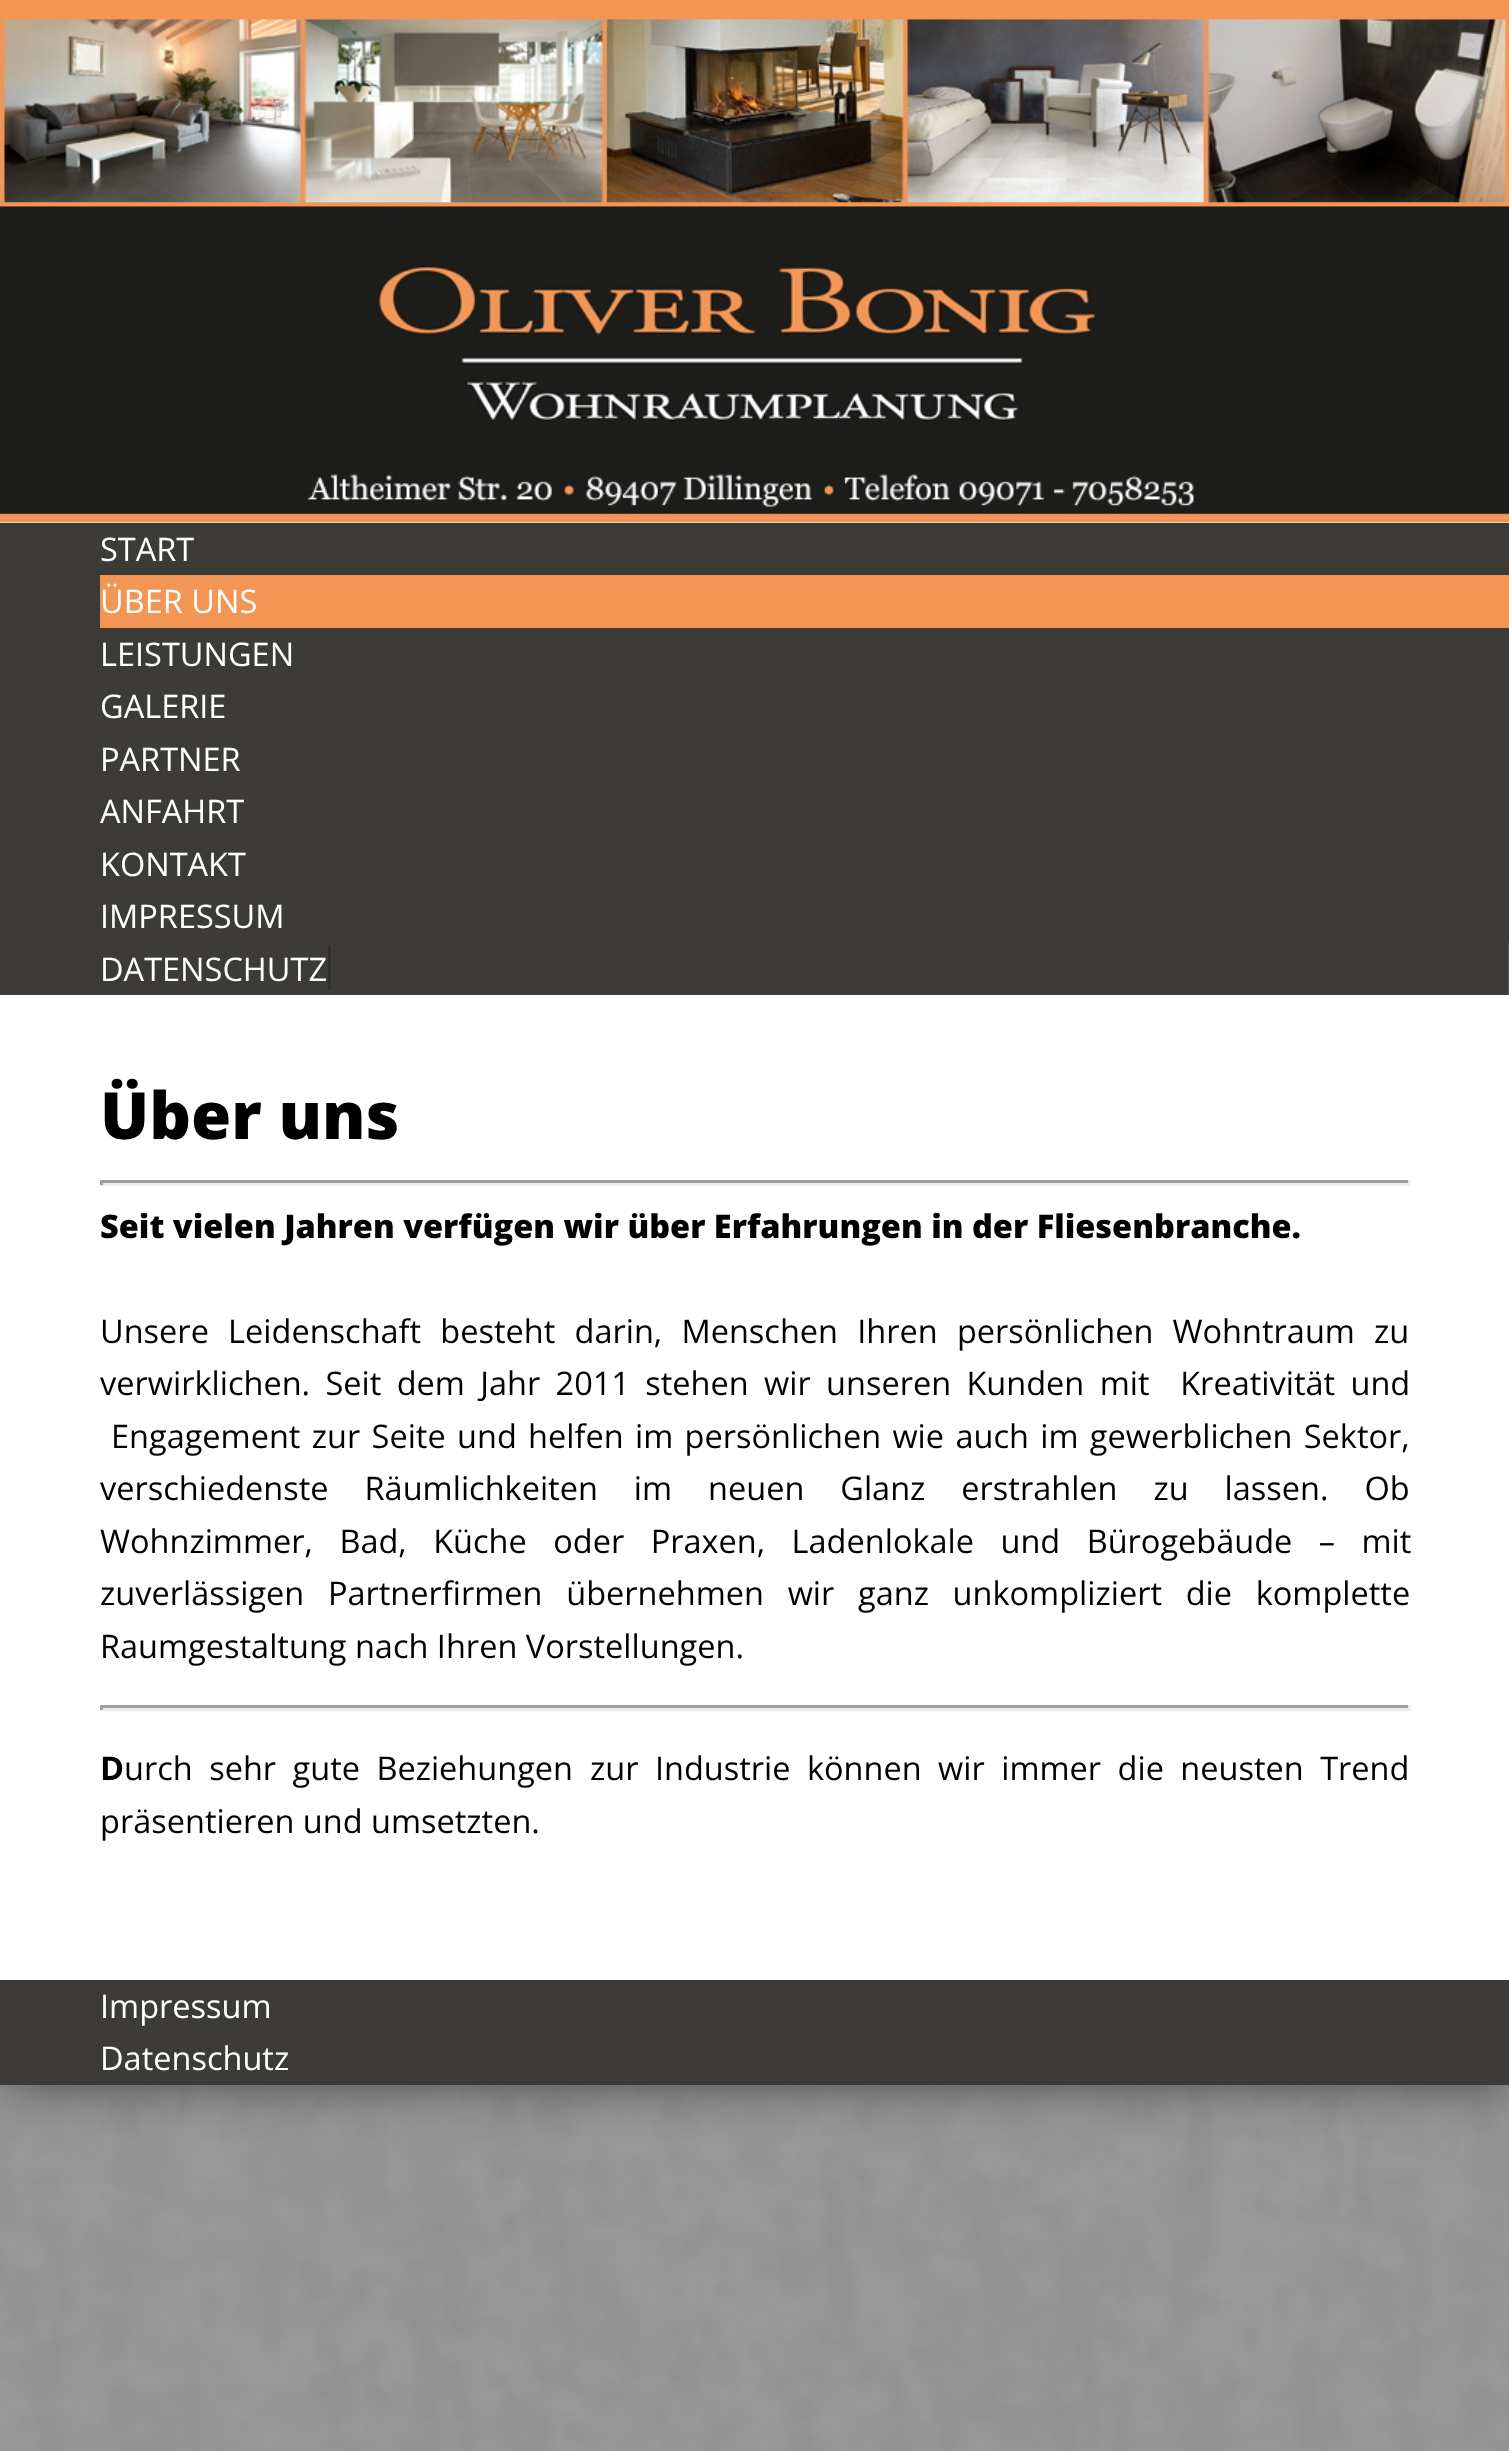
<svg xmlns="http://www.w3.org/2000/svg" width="1509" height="2451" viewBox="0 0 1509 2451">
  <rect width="100%" height="100%" fill="rgb(255,255,255)"/>
  <image x="0" y="2085" width="1509" height="366" href="pic1.png"/>
  <rect x="0" y="0" width="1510" height="2085" fill="rgba(0,0,0,0.5)" filter="blur(25px)"/>
  <rect x="0" y="522" width="1509" height="1458" fill="rgb(255,255,255)"/>
  <rect x="0" y="0" width="1509" height="15" fill="rgb(243,149,85)"/>
  <image x="0" y="15" width="1509" height="508" href="pic2.png"/>
  <rect x="0" y="523" width="1509" height="472" fill="rgb(60,59,55)"/>
  <text x="100" y="561" font-family="Open Sans" font-size="32.5" fill="rgb(255,255,255)">START</text>
  <rect x="100" y="575" width="1409" height="53" fill="rgb(243,149,85)"/>
  <g font-family="Open Sans" font-size="32.5" fill="rgb(255,255,255)">
    <text>
      <tspan x="100" y="613">ÜBER UNS</tspan>
      <tspan x="100" y="666">LEISTUNGEN</tspan>
      <tspan x="100" y="718">GALERIE</tspan>
      <tspan x="100" y="771">PARTNER</tspan>
      <tspan x="100" y="823">ANFAHRT</tspan>
      <tspan x="100" y="876">KONTAKT</tspan>
      <tspan x="100" y="928">IMPRESSUM</tspan>
    </text>
  </g>
  <rect x="1508" y="943" width="1" height="52" fill="rgb(89,88,85)"/>
  <text x="100" y="981" font-family="Open Sans" font-size="32.5" fill="rgb(255,255,255)">DATENSCHUTZ</text>
  <rect x="328" y="945" width="3" height="45" fill="rgb(48,47,44)"/>
  <text x="100" y="1139" font-family="Open Sans" font-size="65" font-weight="800" fill="rgb(0,0,0)">Über uns</text>
  <rect x="100" y="1180" width="1310" height="3" fill="rgb(159,159,159)"/>
  <rect x="1408" y="1180" width="3" height="5" fill="rgb(238,238,238)"/>
  <rect x="100" y="1183" width="1310" height="3" fill="rgb(238,238,238)"/>
  <rect x="100" y="1180" width="3" height="5" fill="rgb(159,159,159)"/>
  <text x="100" y="1238" font-family="Open Sans" font-size="32.5" font-weight="800" fill="rgb(0,0,0)">Seit vielen Jahren verfügen wir über Erfahrungen in der Fliesenbranche.</text>
  <g font-family="Open Sans" font-size="32.5" fill="rgb(0,0,0)">
    <text xml:space="preserve"><tspan x="100" y="1343" word-spacing="10.75">Unsere Leidenschaft besteht darin, Menschen Ihren persönlichen Wohntraum zu</tspan><tspan x="100" y="1395" word-spacing="6.9">verwirklichen. Seit dem Jahr 2011 stehen wir unseren Kunden mit  Kreativität und</tspan></text>
    <text x="111" y="1448" word-spacing="2.9">Engagement zur Seite und helfen im persönlichen wie auch im gewerblichen Sektor,</text>
    <text>
      <tspan x="100" y="1500" word-spacing="27.5">verschiedenste Räumlichkeiten im neuen Glanz erstrahlen zu lassen. Ob</tspan>
      <tspan x="100" y="1553" word-spacing="18">Wohnzimmer, Bad, Küche oder Praxen, Ladenlokale und Bürogebäude – mit</tspan>
      <tspan x="100" y="1605" word-spacing="15.25">zuverlässigen Partnerfirmen übernehmen wir ganz unkompliziert die komplette</tspan>
      <tspan x="100" y="1658">Raumgestaltung nach Ihren Vorstellungen.</tspan>
    </text>
  </g>
  <rect x="100" y="1705" width="1310" height="3" fill="rgb(159,159,159)"/>
  <rect x="1408" y="1705" width="3" height="5" fill="rgb(238,238,238)"/>
  <rect x="100" y="1708" width="1310" height="3" fill="rgb(238,238,238)"/>
  <rect x="100" y="1705" width="3" height="5" fill="rgb(159,159,159)"/>
  <text x="100" y="1780" font-family="Open Sans" font-size="32.5" font-weight="bold" fill="rgb(0,0,0)">D</text>
  <g font-family="Open Sans" font-size="32.5" fill="rgb(0,0,0)">
    <text x="124" y="1780" word-spacing="8">urch sehr gute Beziehungen</text>
    <text x="590" y="1780" word-spacing="8">zur Industrie können wir immer die neusten Trend</text>
    <text x="100" y="1833">präsentieren und umsetzten.</text>
  </g>
  <rect x="0" y="1980" width="1509" height="105" fill="rgb(60,59,55)"/>
  <g font-family="Open Sans" font-size="32.5" fill="rgb(255,255,255)">
    <text>
      <tspan x="100" y="2018">Impressum</tspan>
      <tspan x="100" y="2070">Datenschutz</tspan>
    </text>
  </g>
</svg>
